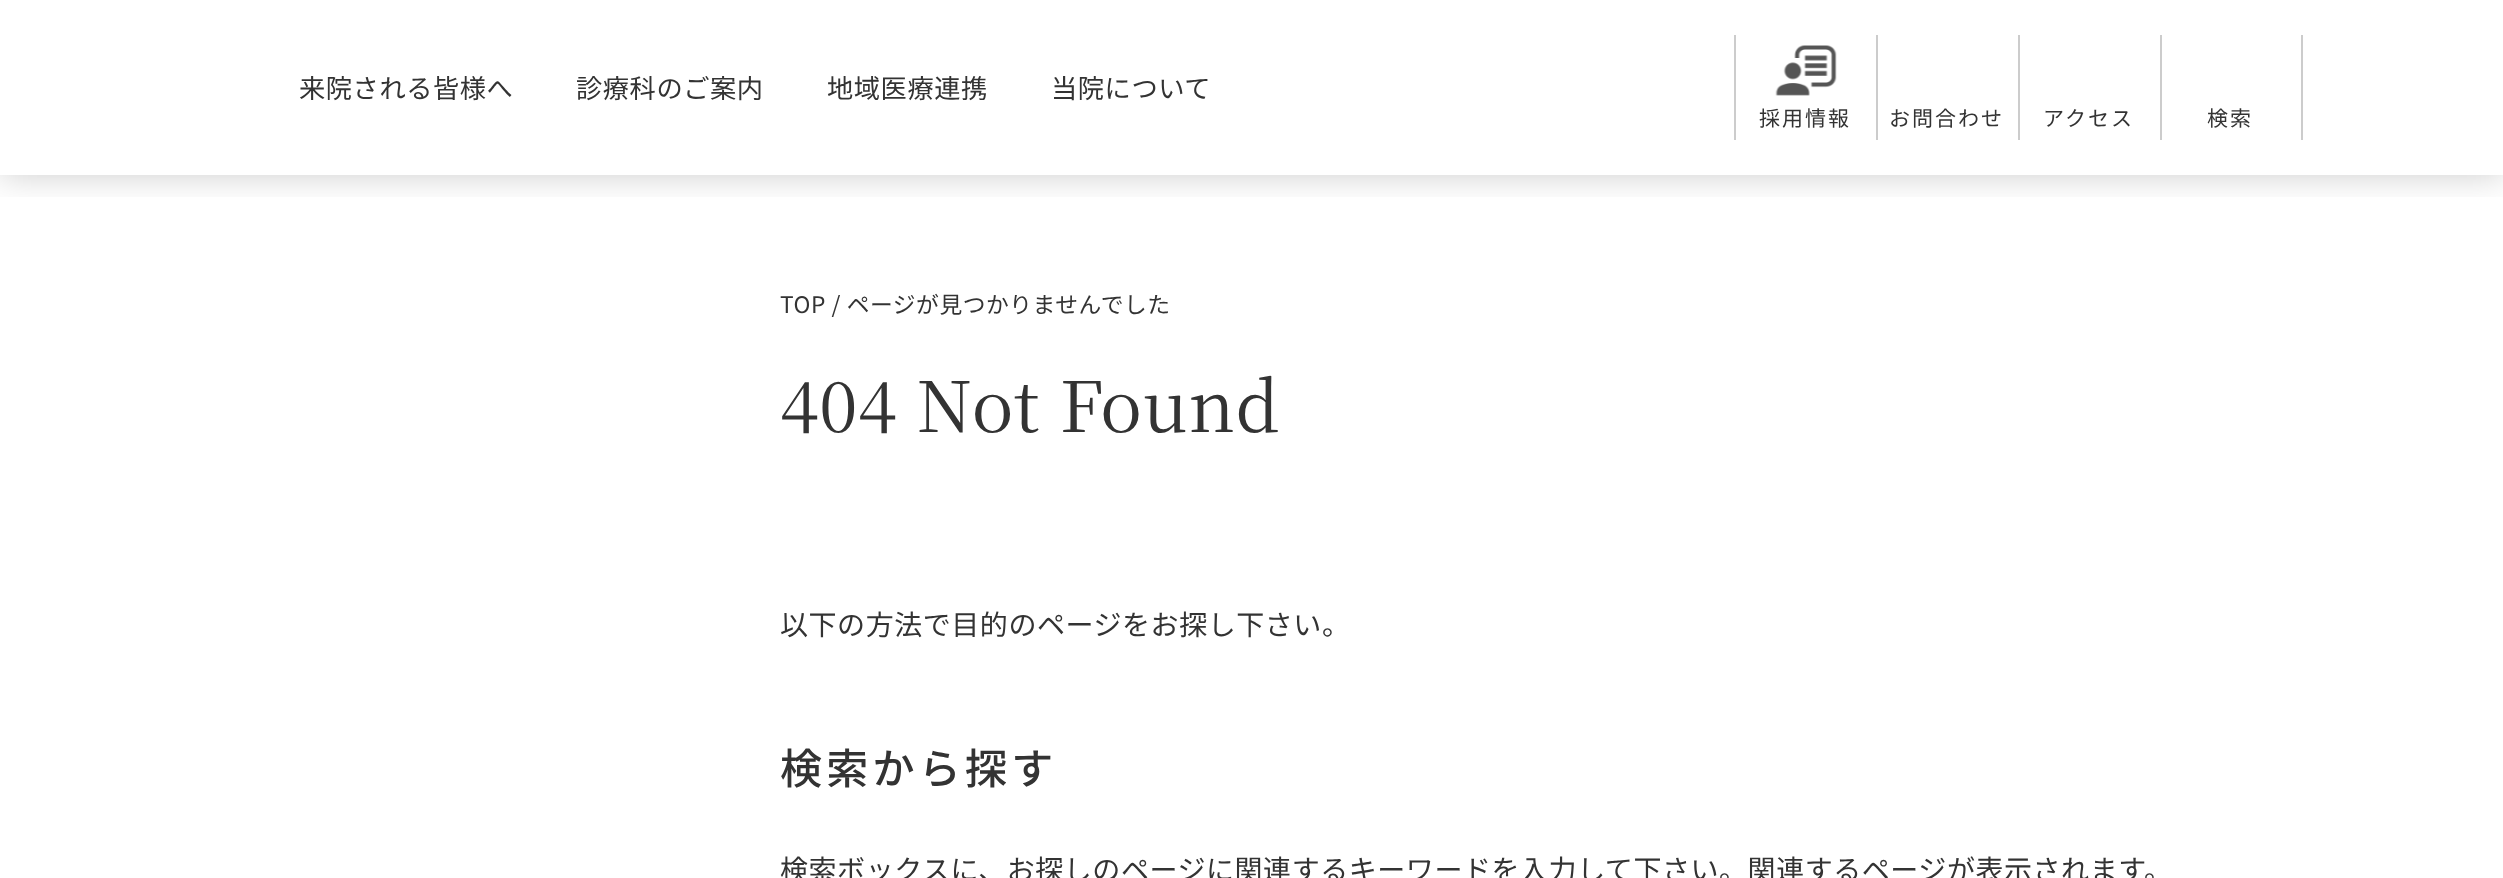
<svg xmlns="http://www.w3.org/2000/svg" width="2503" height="878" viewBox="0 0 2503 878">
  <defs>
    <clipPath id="clip1"><rect x="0" y="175" width="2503" height="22"/></clipPath>
  </defs>
  <rect width="100%" height="100%" fill="rgb(255,255,255)"/>
  <g clip-path="url(#clip1)">
    <rect x="0" y="0" width="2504" height="175" fill="rgba(0,0,0,0.2)" filter="blur(17.5px)"/>
  </g>
  <g font-family="Noto Sans JP" font-size="26.25" letter-spacing="0.55" fill="rgb(51,51,51)">
    <text x="299" y="98">来院される皆様へ</text>
    <text x="576" y="98">診療科のご案内</text>
    <text x="827" y="98">地域医療連携</text>
    <text x="1051" y="98">当院について</text>
  </g>
  <rect x="2301" y="35" width="2" height="105" fill="rgb(204,204,204)"/>
  <rect x="1734" y="35" width="2" height="105" fill="rgb(204,204,204)"/>
  <image x="1775" y="45" width="62" height="51" href="pic1.png"/>
  <text x="1759" y="126" font-family="Noto Sans JP" font-size="21" letter-spacing="2" fill="rgb(51,51,51)">採用情報</text>
  <rect x="1876" y="35" width="2" height="105" fill="rgb(204,204,204)"/>
  <text x="1889" y="126" font-family="Noto Sans JP" font-size="21" letter-spacing="2" fill="rgb(51,51,51)">お問合わせ</text>
  <rect x="2018" y="35" width="2" height="105" fill="rgb(204,204,204)"/>
  <text x="2043" y="126" font-family="Noto Sans JP" font-size="21" letter-spacing="2" fill="rgb(51,51,51)">アクセス</text>
  <rect x="2160" y="35" width="2" height="105" fill="rgb(204,204,204)"/>
  <text x="2207" y="126" font-family="Noto Sans JP" font-size="21" letter-spacing="2" fill="rgb(51,51,51)">検索</text>
  <text x="780" y="313" font-family="Noto Sans JP" font-size="22.75" letter-spacing="0.55" fill="rgb(51,51,51)">TOP / ページが見つかりませんでした</text>
  <text x="780" y="432" word-spacing="1" font-family="Noto Serif JP" font-size="70" font-weight="200" letter-spacing="0.55" fill="rgb(51,51,51)">404 Not Found</text>
  <text x="780" y="635" font-family="Noto Sans JP" font-size="28" letter-spacing="0.55" fill="rgb(51,51,51)">以下の方法で目的のページをお探し下さい。</text>
  <text x="780" y="784" font-family="Noto Sans JP" font-size="42" font-weight="500" letter-spacing="4.25" fill="rgb(51,51,51)">検索から探す</text>
  <text x="780" y="880" font-family="Noto Sans JP" font-size="28" letter-spacing="0.55" fill="rgb(51,51,51)">検索ボックスに、お探しのページに関連するキーワードを入力して下さい。関連するページが表示されます。</text>
</svg>
